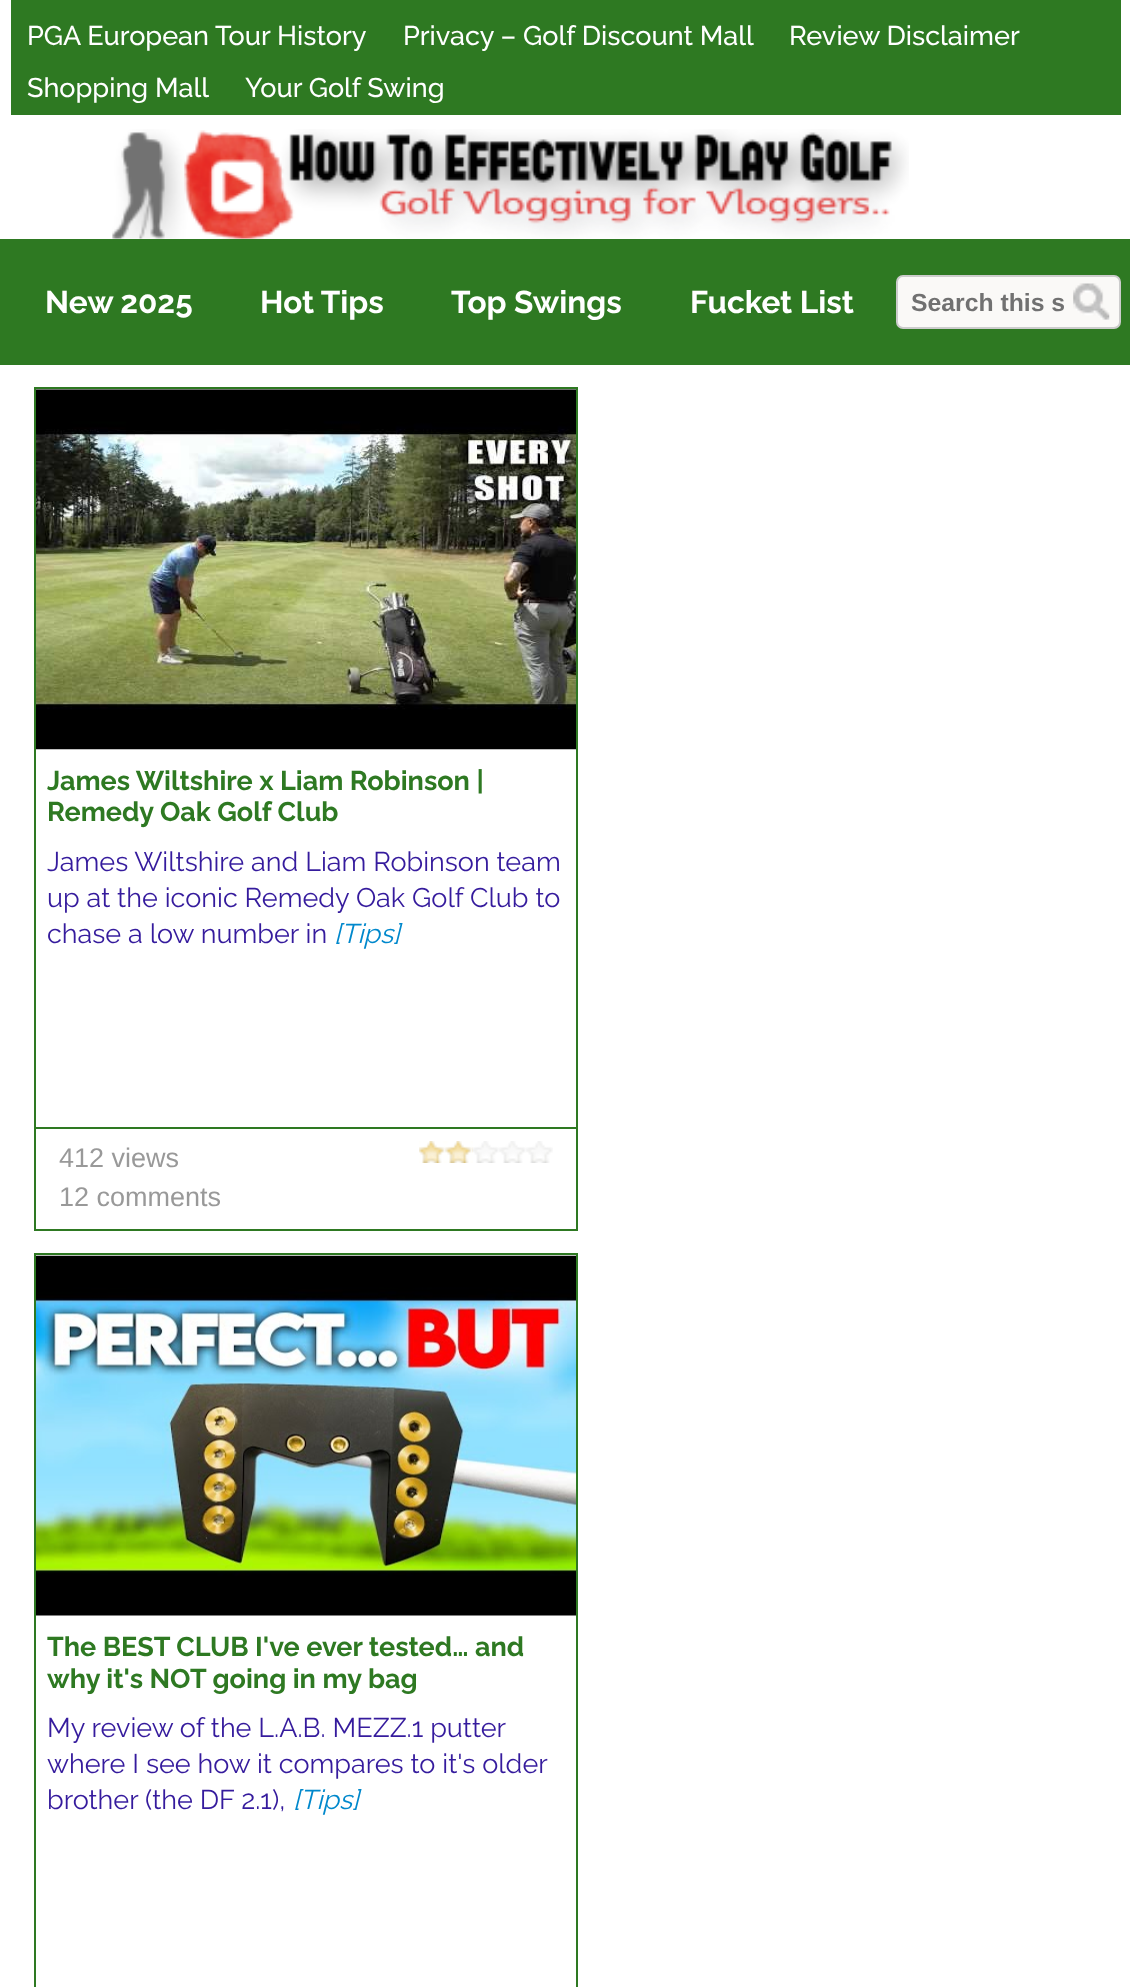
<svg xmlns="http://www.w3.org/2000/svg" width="1130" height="1987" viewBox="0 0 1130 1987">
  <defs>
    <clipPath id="clip1"><rect x="36" y="1627" width="540" height="67"/></clipPath>
  </defs>
  <rect width="100%" height="100%" fill="rgb(255,255,255)"/>
  <rect x="11" y="0" width="1110" height="115" fill="rgb(46,121,34)"/>
  <g font-family="Raleway" font-size="27" font-weight="500" fill="rgb(255,255,255)">
    <text x="27" y="45">PGA European Tour History</text>
    <text x="403" y="45">Privacy – Golf Discount Mall</text>
    <text x="789" y="45">Review Disclaimer</text>
    <text x="27" y="97">Shopping Mall</text>
    <text x="245" y="97">Your Golf Swing</text>
  </g>
  <image x="112" y="129" width="797" height="110" href="pic1.png"/>
  <rect x="0" y="239" width="1130" height="126" fill="rgb(46,121,34)"/>
  <g font-family="Raleway" font-size="31.5" font-weight="bold" fill="rgb(255,255,255)">
    <text x="45" y="313">New 2025</text>
    <text x="260" y="313">Hot Tips</text>
    <text x="451" y="313">Top Swings</text>
    <text x="690" y="313">Fucket List</text>
  </g>
  <rect x="897" y="276" width="223" height="52" rx="6" fill="rgb(250,249,247)" stroke="rgb(204,204,204)" stroke-width="2"/>
  <text x="911" y="311" font-family="Liberation Sans" font-size="24.75" font-weight="bold" fill="rgb(113,113,113)">Search this s</text>
  <image x="1073" y="283" width="37" height="37" href="pic2.png"/>
  <rect x="35" y="388" width="542" height="842" fill="none" stroke="rgb(46,121,34)" stroke-width="2"/>
  <image x="36" y="389" width="540" height="361" href="pic3.png"/>
  <g font-family="Raleway" font-size="27" font-weight="bold" fill="rgb(46,121,34)">
    <text>
      <tspan x="47" y="790">James Wiltshire x Liam Robinson |</tspan>
      <tspan x="47" y="821">Remedy Oak Golf Club</tspan>
    </text>
  </g>
  <g font-family="Raleway" font-size="27" fill="rgb(53,27,157)">
    <text>
      <tspan x="47" y="871">James Wiltshire and Liam Robinson team</tspan>
      <tspan x="47" y="907">up at the iconic Remedy Oak Golf Club to</tspan>
      <tspan x="47" y="943">chase a low number in</tspan>
    </text>
  </g>
  <text x="334" y="943" font-family="Raleway" font-size="27" font-style="italic" fill="rgb(0,136,204)">[Tips]</text>
  <rect x="36" y="1127" width="540" height="2" fill="rgb(46,121,34)"/>
  <text x="59" y="1167" font-family="Liberation Sans" font-size="27" fill="rgb(153,153,153)">412 views</text>
  <rect x="419" y="1141" width="54" height="22" fill="rgb(244,194,57)"/>
  <image x="419" y="1141" width="134" height="22" href="pic4.png"/>
  <text x="59" y="1206" font-family="Liberation Sans" font-size="27" fill="rgb(153,153,153)">12 comments</text>
  <rect x="35" y="1254" width="542" height="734" fill="none" stroke="rgb(46,121,34)" stroke-width="2"/>
  <image x="36" y="1255" width="540" height="361" href="pic5.png"/>
  <text x="47" y="1656" font-family="Raleway" font-size="27" font-weight="bold" fill="rgb(46,121,34)">The BEST CLUB I've ever tested… and</text>
  <g clip-path="url(#clip1)">
    <text x="47" y="1688" font-family="Raleway" font-size="27" font-weight="bold" fill="rgb(46,121,34)">why it's NOT going in my bag</text>
  </g>
  <g font-family="Raleway" font-size="27" fill="rgb(53,27,157)">
    <text>
      <tspan x="47" y="1737">My review of the L.A.B. MEZZ.1 putter</tspan>
      <tspan x="47" y="1773">where I see how it compares to it's older</tspan>
      <tspan x="47" y="1809">brother (the DF 2.1),</tspan>
    </text>
  </g>
  <text x="293" y="1809" font-family="Raleway" font-size="27" font-style="italic" fill="rgb(0,136,204)">[Tips]</text>
</svg>
